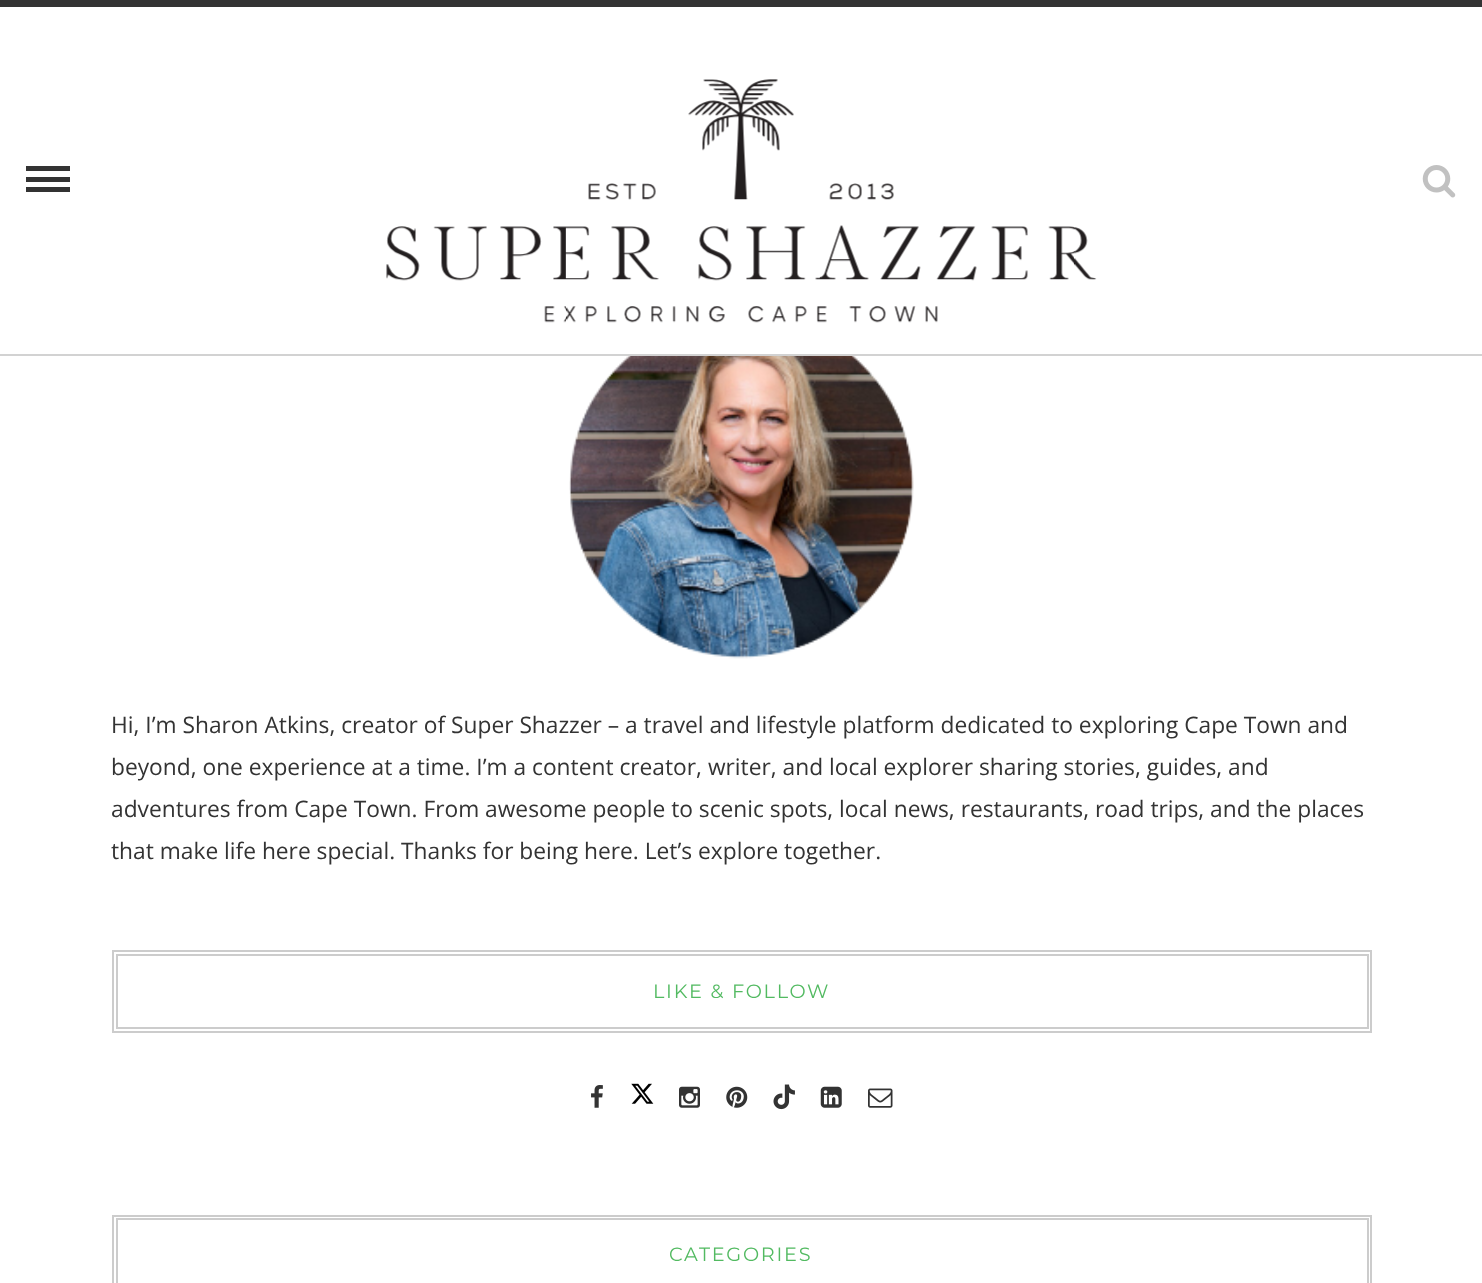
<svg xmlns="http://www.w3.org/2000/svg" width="1482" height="1283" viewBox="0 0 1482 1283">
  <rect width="100%" height="100%" fill="rgb(255,255,255)"/>
  <rect x="0" y="0" width="1482" height="7" fill="rgb(51,51,51)"/>
  <rect x="0" y="354" width="1482" height="2" fill="rgb(210,210,210)"/>
  <rect x="26" y="166" width="44" height="5" fill="rgb(51,51,51)"/>
  <rect x="26" y="177" width="44" height="5" fill="rgb(51,51,51)"/>
  <rect x="26" y="187" width="44" height="5" fill="rgb(51,51,51)"/>
  <image x="386" y="79" width="711" height="244" href="pic1.png"/>
  <image x="1422" y="165" width="34" height="33" href="pic2.png"/>
  <image x="569" y="356" width="345" height="303" href="pic3.png"/>
  <g font-family="Open Sans" font-size="22.75" fill="rgb(51,51,51)">
    <text>
      <tspan x="111" y="733">Hi, I’m Sharon Atkins, creator of Super Shazzer – a travel and lifestyle platform dedicated to exploring Cape Town and</tspan>
      <tspan x="111" y="775">beyond, one experience at a time. I’m a content creator, writer, and local explorer sharing stories, guides, and</tspan>
      <tspan x="111" y="817">adventures from Cape Town. From awesome people to scenic spots, local news, restaurants, road trips, and the places</tspan>
      <tspan x="111" y="859">that make life here special. Thanks for being here. Let’s explore together.</tspan>
    </text>
  </g>
  <rect x="113" y="951" width="1258" height="81" fill="none" stroke="rgb(204,204,204)" stroke-width="2"/>
  <rect x="117" y="955" width="1251" height="73" fill="none" stroke="rgb(204,204,204)" stroke-width="2"/>
  <text x="653" y="998" font-family="Montserrat" font-size="19.25" font-weight="100" letter-spacing="1.75" fill="rgb(82,186,97)">LIKE &amp; FOLLOW</text>
  <image x="591" y="1085" width="12" height="23" href="pic4.png"/>
  <image x="631" y="1083" width="23" height="21" href="pic5.png"/>
  <image x="679" y="1086" width="21" height="22" href="pic6.png"/>
  <image x="726" y="1086" width="22" height="22" href="pic7.png"/>
  <image x="773" y="1084" width="22" height="26" href="pic8.png"/>
  <image x="820" y="1086" width="22" height="22" href="pic9.png"/>
  <image x="868" y="1088" width="25" height="20" href="pic10.png"/>
  <rect x="113" y="1216" width="1258" height="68" fill="none" stroke="rgb(204,204,204)" stroke-width="2"/>
  <rect x="117" y="1219" width="1251" height="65" fill="none" stroke="rgb(204,204,204)" stroke-width="2"/>
  <text x="669" y="1261" font-family="Montserrat" font-size="19.25" font-weight="100" letter-spacing="1.75" fill="rgb(82,186,97)">CATEGORIES</text>
</svg>
